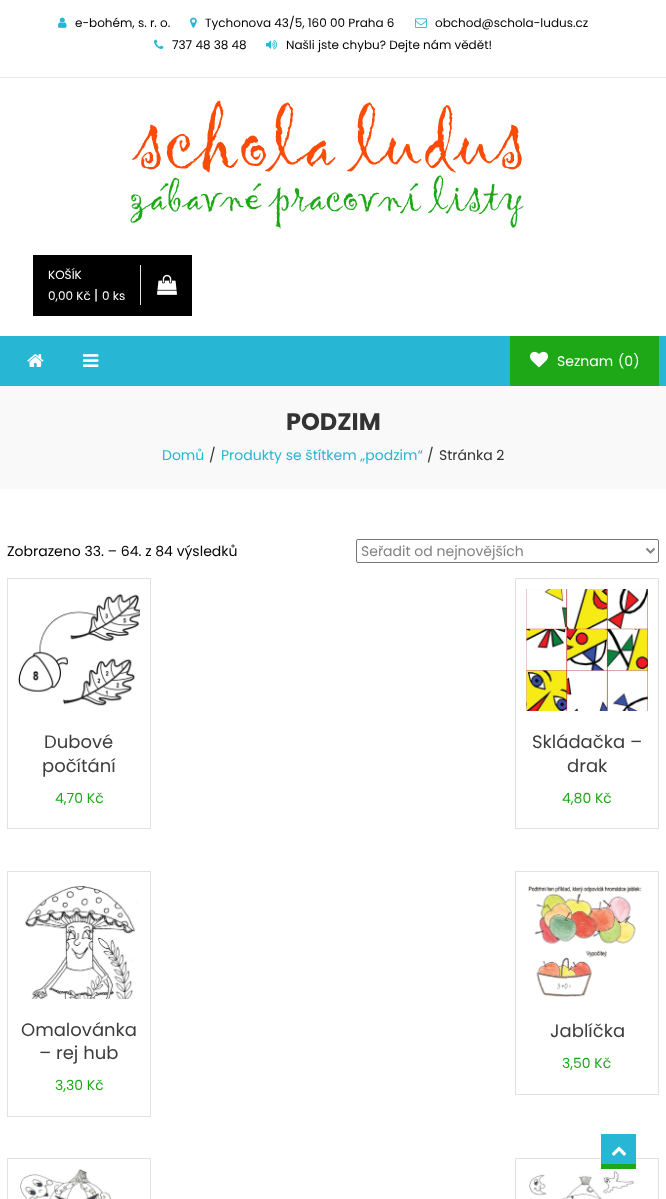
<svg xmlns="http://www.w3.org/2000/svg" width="666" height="1199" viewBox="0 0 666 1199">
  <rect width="100%" height="100%" fill="rgb(255,255,255)"/>
  <rect x="0" y="77" width="666" height="1" fill="rgb(234,234,234)"/>
  <image x="58" y="17" width="9" height="11" href="pic1.png"/>
  <text x="75" y="27" font-family="Poppins" font-size="12" fill="rgb(0,0,0)">e-bohém, s. r. o.</text>
  <image x="190" y="17" width="7" height="11" href="pic2.png"/>
  <text x="205" y="27" font-family="Poppins" font-size="12" fill="rgb(0,0,0)">Tychonova 43/5, 160 00 Praha 6</text>
  <image x="415" y="18" width="12" height="10" href="pic3.png"/>
  <text x="435" y="27" font-family="Poppins" font-size="12" fill="rgb(0,0,0)">obchod@schola-ludus.cz</text>
  <image x="154" y="39" width="10" height="10" href="pic4.png"/>
  <text x="172" y="49" font-family="Poppins" font-size="12" fill="rgb(0,0,0)">737 48 38 48</text>
  <image x="266" y="40" width="12" height="10" href="pic5.png"/>
  <text x="286" y="49" font-family="Poppins" font-size="12" fill="rgb(0,0,0)">Našli jste chybu? Dejte nám vědět!</text>
  <image x="130" y="100" width="394" height="129" href="pic6.png"/>
  <rect x="33" y="255" width="159" height="61" fill="rgb(0,0,0)"/>
  <g font-family="Poppins" font-size="12" fill="rgb(255,255,255)">
    <text>
      <tspan x="48" y="279">KOŠÍK</tspan>
      <tspan x="48" y="300">0,00 Kč</tspan>
    </text>
  </g>
  <text x="94" y="300" font-family="Poppins" font-size="14" fill="rgb(255,255,255)">|</text>
  <text x="102" y="300" font-family="Poppins" font-size="12" fill="rgb(255,255,255)">0 ks</text>
  <rect x="140" y="265" width="1" height="40" fill="rgb(225,225,225)"/>
  <image x="157" y="274" width="20" height="21" href="pic7.png"/>
  <rect x="0" y="336" width="666" height="50" fill="rgb(39,182,212)"/>
  <image x="27" y="354" width="17" height="13" href="pic8.png"/>
  <image x="83" y="354" width="16" height="13" href="pic9.png"/>
  <rect x="510" y="336" width="149" height="50" fill="rgb(30,168,23)"/>
  <image x="530" y="351" width="18" height="17" href="pic10.png"/>
  <g font-family="Poppins" font-size="14" fill="rgb(255,255,255)">
    <text x="557" y="366">Seznam</text>
    <text x="618" y="366">(0)</text>
  </g>
  <rect x="0" y="386" width="666" height="103" fill="rgb(249,249,249)"/>
  <text x="286" y="430" font-family="Poppins" font-size="24" font-weight="bold" fill="rgb(51,51,51)">PODZIM</text>
  <text x="162" y="460" font-family="Poppins" font-size="14" fill="rgb(39,182,212)">Domů</text>
  <text x="209" y="460" font-family="Poppins" font-size="14" fill="rgb(51,51,51)">/</text>
  <text x="221" y="460" font-family="Poppins" font-size="14" fill="rgb(39,182,212)">Produkty se štítkem „podzim“</text>
  <g font-family="Poppins" font-size="14" fill="rgb(51,51,51)">
    <text x="427" y="460">/</text>
    <text x="439" y="460">Stránka 2</text>
  </g>
  <text x="7" y="556" font-family="Poppins" font-size="14" fill="rgb(0,0,0)">Zobrazeno 33. – 64. z 84 výsledků</text>
  <rect x="356.5" y="539.5" width="302" height="23" rx="1.5" fill="none" stroke="rgb(118,118,118)"/>
  <path d="M646.5 548.5L650.5 552.5L654.5 548.5" fill="none" stroke="rgb(129,131,132)" stroke-width="2"/>
  <text x="361" y="556" font-family="Poppins" font-size="14" fill="rgb(129,131,132)">Seřadit od nejnovějších</text>
  <rect x="7.5" y="578.5" width="143" height="250" fill="none" stroke="rgb(225,225,225)"/>
  <image x="18" y="593" width="122" height="113" href="pic11.png"/>
  <g font-family="Poppins" font-size="18" fill="rgb(61,61,61)">
    <text x="44" y="748">Dubové</text>
    <text x="42" y="772">počítání</text>
  </g>
  <text x="55" y="803" font-family="Poppins" font-size="14" fill="rgb(30,168,23)">4,70 Kč</text>
  <rect x="515.5" y="578.5" width="143" height="250" fill="none" stroke="rgb(225,225,225)"/>
  <image x="526" y="589" width="122" height="122" href="pic12.png"/>
  <g font-family="Poppins" font-size="18" fill="rgb(61,61,61)">
    <text x="532" y="748">Skládačka –</text>
    <text x="567" y="772">drak</text>
  </g>
  <text x="562" y="803" font-family="Poppins" font-size="14" fill="rgb(30,168,23)">4,80 Kč</text>
  <rect x="7.5" y="871.5" width="143" height="245" fill="none" stroke="rgb(225,225,225)"/>
  <image x="24" y="886" width="114" height="113" href="pic13.png"/>
  <g font-family="Poppins" font-size="18" fill="rgb(61,61,61)">
    <text x="21" y="1036">Omalovánka</text>
    <text x="39" y="1059">– rej hub</text>
  </g>
  <text x="55" y="1090" font-family="Poppins" font-size="14" fill="rgb(30,168,23)">3,30 Kč</text>
  <rect x="515.5" y="871.5" width="143" height="223" fill="none" stroke="rgb(225,225,225)"/>
  <image x="528" y="882" width="114" height="116" href="pic14.png"/>
  <text x="550" y="1037" font-family="Poppins" font-size="18" fill="rgb(61,61,61)">Jablíčka</text>
  <text x="562" y="1068" font-family="Poppins" font-size="14" fill="rgb(30,168,23)">3,50 Kč</text>
  <rect x="7.5" y="1158.5" width="143" height="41" fill="none" stroke="rgb(225,225,225)"/>
  <image x="20" y="1169" width="91" height="30" href="pic15.png"/>
  <rect x="515.5" y="1158.5" width="143" height="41" fill="none" stroke="rgb(225,225,225)"/>
  <image x="529" y="1171" width="110" height="28" href="pic16.png"/>
  <rect x="601" y="1134" width="35" height="30" fill="rgb(39,182,212)"/>
  <rect x="601" y="1164" width="35" height="5" fill="rgb(30,168,23)"/>
  <image x="611" y="1146" width="16" height="10" href="pic17.png"/>
</svg>
